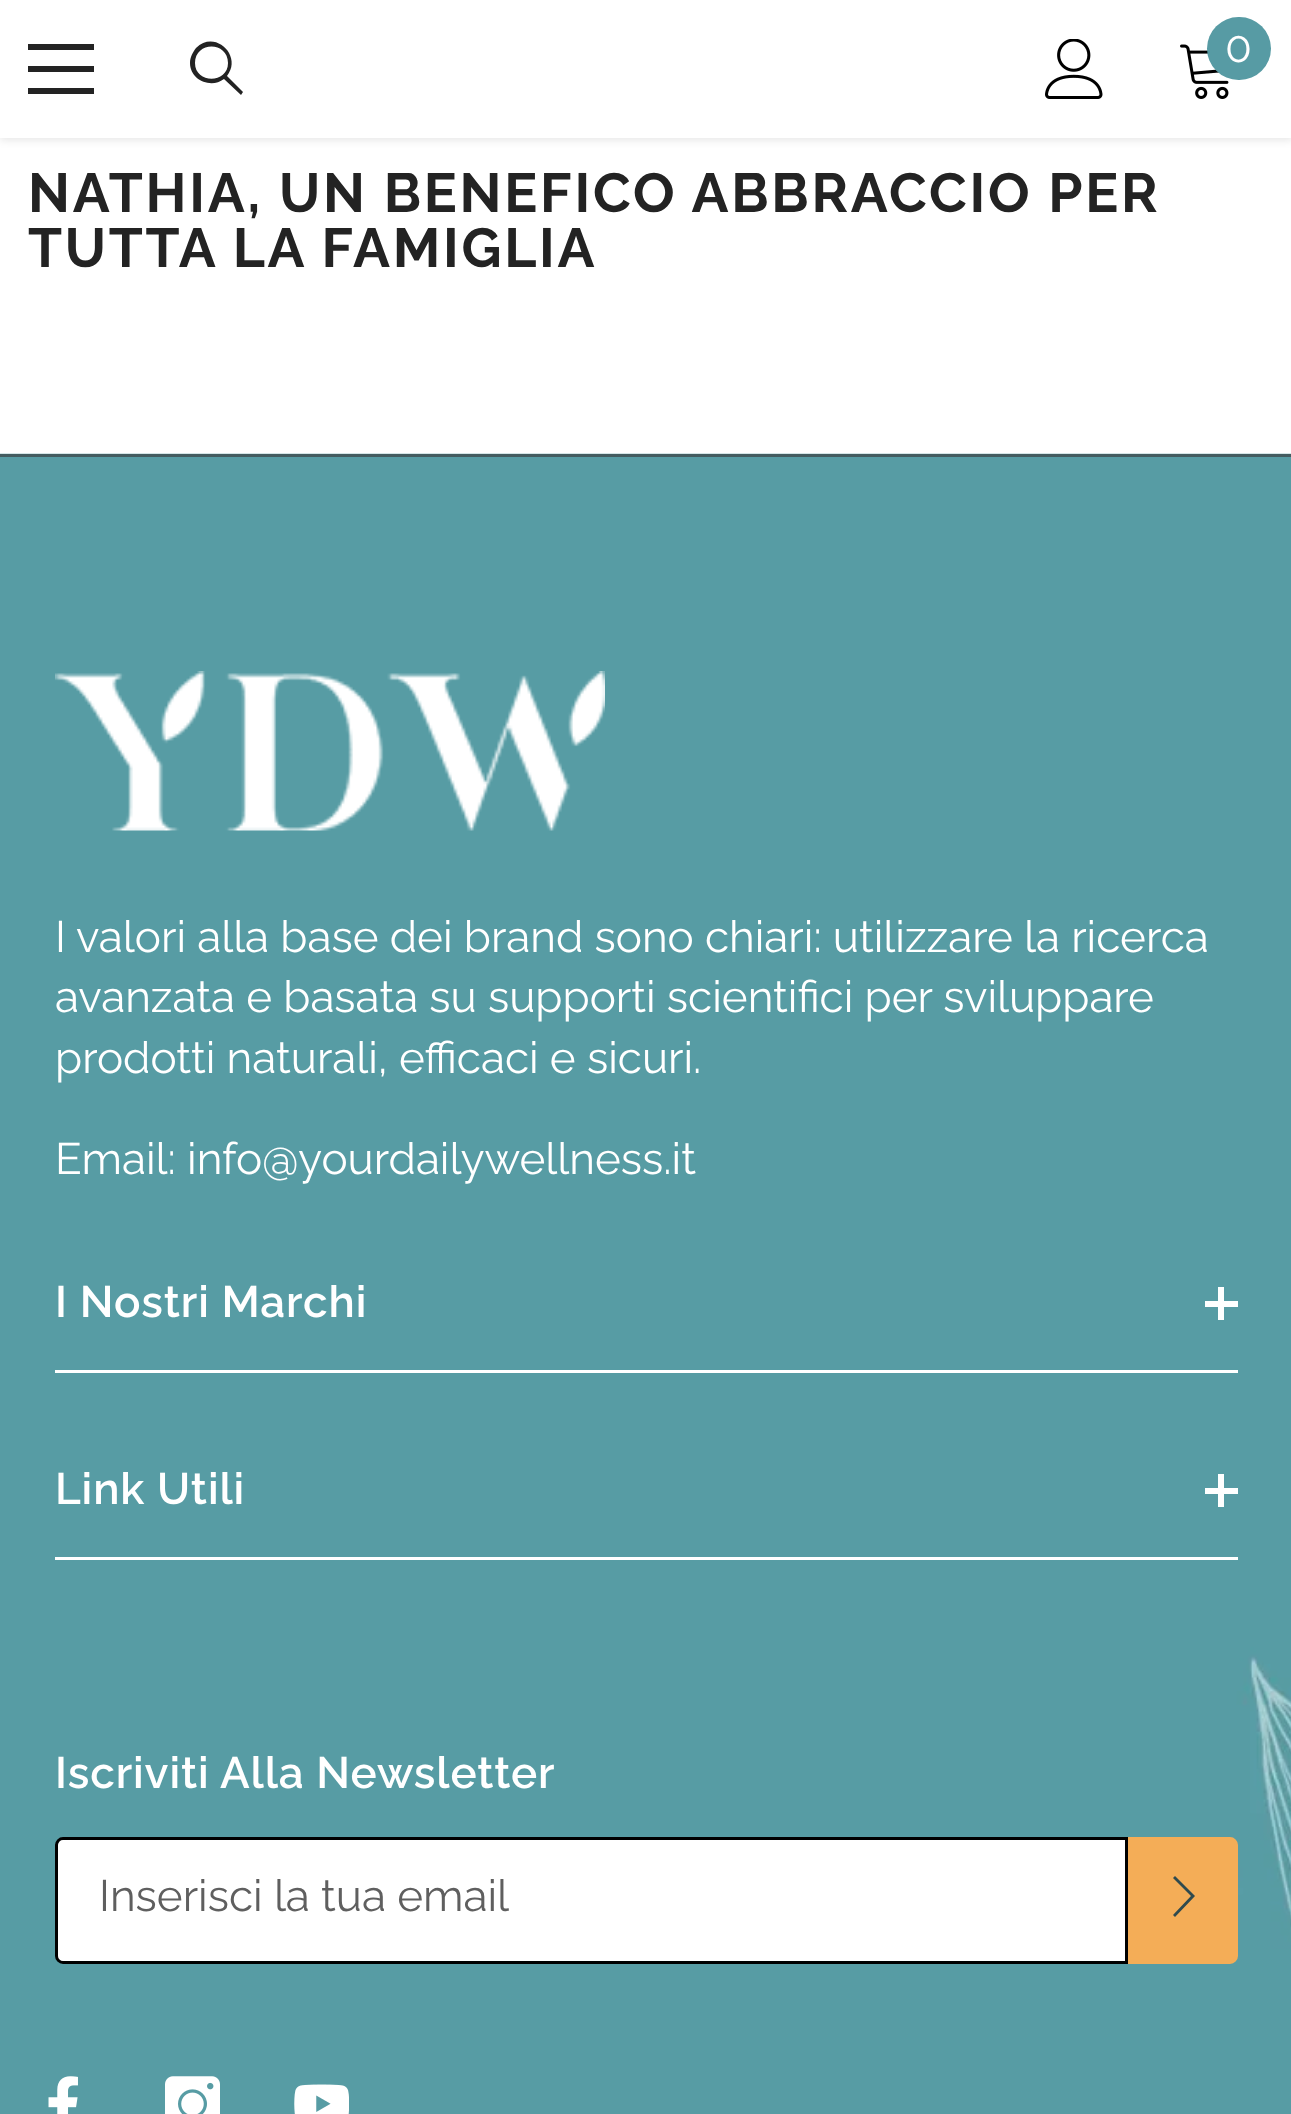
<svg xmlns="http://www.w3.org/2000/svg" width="1291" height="2114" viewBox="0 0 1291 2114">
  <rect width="100%" height="100%" fill="rgb(255,255,255)"/>
  <rect x="0" y="3" width="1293" height="137" fill="rgba(0,0,0,0.1)" filter="blur(4px)"/>
  <rect x="0" y="0" width="1291" height="138" fill="rgb(255,255,255)"/>
  <rect x="28" y="66" width="66" height="6" fill="rgb(35,35,35)"/>
  <rect x="28" y="44" width="66" height="6" fill="rgb(35,35,35)"/>
  <rect x="28" y="88" width="66" height="6" fill="rgb(35,35,35)"/>
  <path d="M190 63C190 80 211 89 224 79L241 95L243 92L227 76C243 56 215 29 196 48C193 52 190 57 190 63ZM195 63C195 41 228 41 228 63C228 84 195 84 195 63Z" fill="rgb(35,35,35)"/>
  <image x="1045" y="39" width="58" height="60" href="pic1.png"/>
  <image x="1180" y="44" width="49" height="55" href="pic2.png"/>
  <rect x="1207" y="17" width="64" height="63" rx="31.5" fill="rgb(87,155,164)"/>
  <text x="1225" y="62" font-family="Raleway" font-size="44" fill="rgb(255,255,255)">0</text>
  <g font-family="Raleway" font-size="55" font-weight="bold" letter-spacing="2.75" fill="rgb(35,35,35)">
    <text>
      <tspan x="28" y="212">NATHIA, UN BENEFICO ABBRACCIO PER</tspan>
      <tspan x="28" y="267">TUTTA LA FAMIGLIA</tspan>
    </text>
  </g>
  <image x="0" y="453" width="1291" height="1661" href="pic3.png"/>
  <rect x="0" y="454" width="1291" height="3" fill="rgb(68,92,96)"/>
  <image x="55" y="671" width="550" height="160" href="pic4.png"/>
  <g font-family="Raleway" font-size="44" fill="rgb(255,255,255)">
    <text>
      <tspan x="55" y="952">I valori alla base dei brand sono chiari: utilizzare la ricerca</tspan>
      <tspan x="55" y="1012">avanzata e basata su supporti scientifici per sviluppare</tspan>
      <tspan x="55" y="1073">prodotti naturali, efficaci e sicuri.</tspan>
    </text>
    <text x="55" y="1174">Email: info@yourdailywellness.it</text>
  </g>
  <rect x="55" y="1370" width="1183" height="3" fill="rgb(255,255,255)"/>
  <text x="55" y="1317" font-family="Raleway" font-size="44" font-weight="600" letter-spacing="0.9" fill="rgb(255,255,255)">I Nostri Marchi</text>
  <rect x="1218" y="1287" width="6" height="33" fill="rgb(255,255,255)"/>
  <rect x="1205" y="1301" width="33" height="6" fill="rgb(255,255,255)"/>
  <rect x="55" y="1557" width="1183" height="3" fill="rgb(255,255,255)"/>
  <text x="55" y="1504" font-family="Raleway" font-size="44" font-weight="600" letter-spacing="0.9" fill="rgb(255,255,255)">Link Utili</text>
  <rect x="1218" y="1474" width="6" height="33" fill="rgb(255,255,255)"/>
  <rect x="1205" y="1488" width="33" height="6" fill="rgb(255,255,255)"/>
  <text x="55" y="1788" font-family="Raleway" font-size="44" font-weight="600" letter-spacing="0.9" fill="rgb(255,255,255)">Iscriviti Alla Newsletter</text>
  <path d="M63 1838.5H1126.5V1962.5H63C59.5 1962.5 56.5 1959.5 56.5 1956V1845C56.5 1841.5 59.5 1838.5 63 1838.5Z" fill="rgb(255,255,255)" stroke="rgb(0,0,0)" stroke-width="3"/>
  <text x="99" y="1911" font-family="Raleway" font-size="44" fill="rgb(95,95,95)">Inserisci la tua email</text>
  <path d="M1129.5 1838.5H1230C1233.5 1838.5 1236.5 1841.5 1236.5 1845V1956C1236.5 1959.5 1233.5 1962.5 1230 1962.5H1129.5Z" fill="rgb(244,173,87)" stroke="rgb(244,173,87)" stroke-width="3"/>
  <path d="M1175 1876L1173 1878L1191 1896L1173 1915L1175 1917L1195 1896Z" fill="rgb(47,74,78)"/>
  <image x="48" y="2076" width="30" height="38" href="pic5.png"/>
  <image x="165" y="2076" width="55" height="38" href="pic6.png"/>
  <image x="294" y="2084" width="55" height="30" href="pic7.png"/>
</svg>
